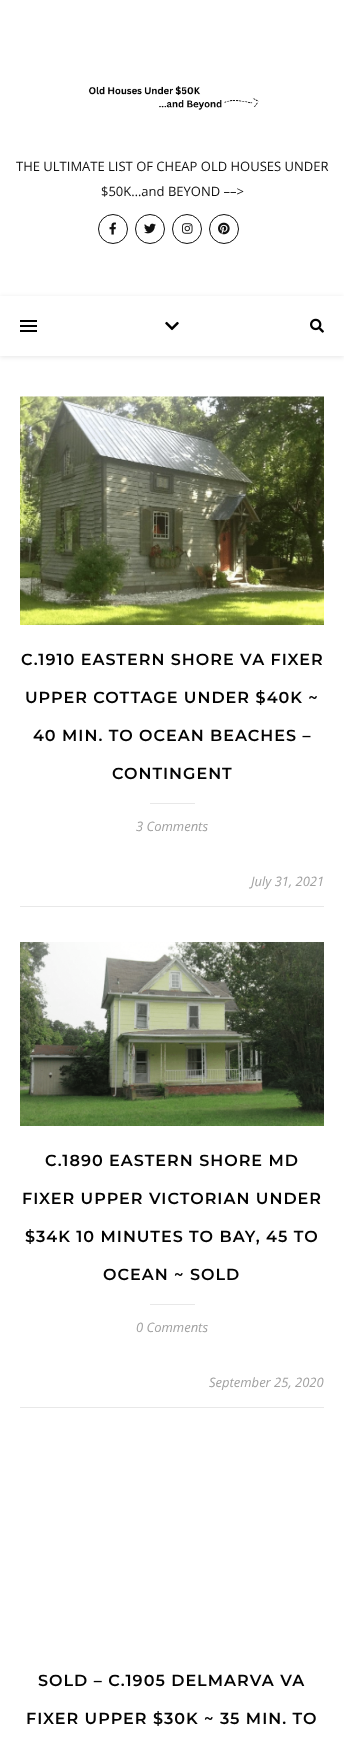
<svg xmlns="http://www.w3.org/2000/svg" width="344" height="1740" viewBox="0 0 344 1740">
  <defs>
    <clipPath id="clip1"><path d="M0 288H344V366H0ZM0 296H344V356H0Z" clip-rule="evenodd"/></clipPath>
  </defs>
  <rect width="100%" height="100%" fill="rgb(255,255,255)"/>
  <image x="88" y="85" width="171" height="25" href="pic1.png"/>
  <g font-family="Open Sans" font-size="13" fill="rgb(17,17,17)">
    <text x="16" y="171">THE ULTIMATE LIST OF CHEAP OLD HOUSES UNDER</text>
    <text x="101" y="196">$50K…and BEYOND ––&gt;</text>
  </g>
  <circle cx="113" cy="229" r="14.5" fill="none" stroke="rgb(17,17,17)"/>
  <image x="109" y="222" width="7" height="13" href="pic2.png"/>
  <circle cx="150" cy="229" r="14.5" fill="none" stroke="rgb(17,17,17)"/>
  <image x="144" y="223" width="12" height="11" href="pic3.png"/>
  <circle cx="187" cy="229" r="14.5" fill="none" stroke="rgb(17,17,17)"/>
  <image x="182" y="223" width="11" height="11" href="pic4.png"/>
  <circle cx="224" cy="229" r="14.5" fill="none" stroke="rgb(17,17,17)"/>
  <image x="218" y="222" width="12" height="13" href="pic5.png"/>
  <g clip-path="url(#clip1)">
    <rect x="0" y="297" width="344" height="60" fill="rgba(0,0,0,0.1)" filter="blur(2.5px)"/>
  </g>
  <rect x="20" y="320" width="17" height="2" fill="rgb(0,0,0)"/>
  <rect x="20" y="325" width="17" height="2" fill="rgb(0,0,0)"/>
  <rect x="20" y="330" width="17" height="2" fill="rgb(0,0,0)"/>
  <image x="165" y="321" width="14" height="10" href="pic6.png"/>
  <image x="310" y="318" width="14" height="15" href="pic7.png"/>
  <image x="20" y="396" width="304" height="229" href="pic8.png"/>
  <g font-family="Montserrat" font-size="16" font-weight="600" letter-spacing="1" fill="rgb(3,3,3)">
    <text x="21" y="665">C.1910 EASTERN SHORE VA FIXER</text>
    <text x="25" y="703">UPPER COTTAGE UNDER $40K ~</text>
    <text x="33" y="741">40 MIN. TO OCEAN BEACHES –</text>
    <text x="112" y="779">CONTINGENT</text>
  </g>
  <rect x="150" y="803" width="45" height="1" fill="rgb(232,232,232)"/>
  <text x="136" y="831" font-family="Open Sans" font-size="13" font-style="italic" fill="rgb(161,161,161)">3 Comments</text>
  <rect x="20" y="906" width="304" height="1" fill="rgb(232,232,232)"/>
  <text x="251" y="886" font-family="Open Sans" font-size="13" font-style="italic" fill="rgb(161,161,161)">July 31, 2021</text>
  <image x="20" y="942" width="304" height="184" href="pic9.png"/>
  <g font-family="Montserrat" font-size="16" font-weight="600" letter-spacing="1" fill="rgb(3,3,3)">
    <text x="45" y="1166">C.1890 EASTERN SHORE MD</text>
    <text x="22" y="1204">FIXER UPPER VICTORIAN UNDER</text>
    <text x="25" y="1242">$34K 10 MINUTES TO BAY, 45 TO</text>
    <text x="103" y="1280">OCEAN ~ SOLD</text>
  </g>
  <rect x="150" y="1304" width="45" height="1" fill="rgb(232,232,232)"/>
  <text x="136" y="1332" font-family="Open Sans" font-size="13" font-style="italic" fill="rgb(161,161,161)">0 Comments</text>
  <rect x="20" y="1407" width="304" height="1" fill="rgb(232,232,232)"/>
  <text x="209" y="1387" font-family="Open Sans" font-size="13" font-style="italic" fill="rgb(161,161,161)">September 25, 2020</text>
  <g font-family="Montserrat" font-size="16" font-weight="600" letter-spacing="1" fill="rgb(3,3,3)">
    <text x="38" y="1686">SOLD – C.1905 DELMARVA VA</text>
    <text x="26" y="1724">FIXER UPPER $30K ~ 35 MIN. TO</text>
  </g>
</svg>
